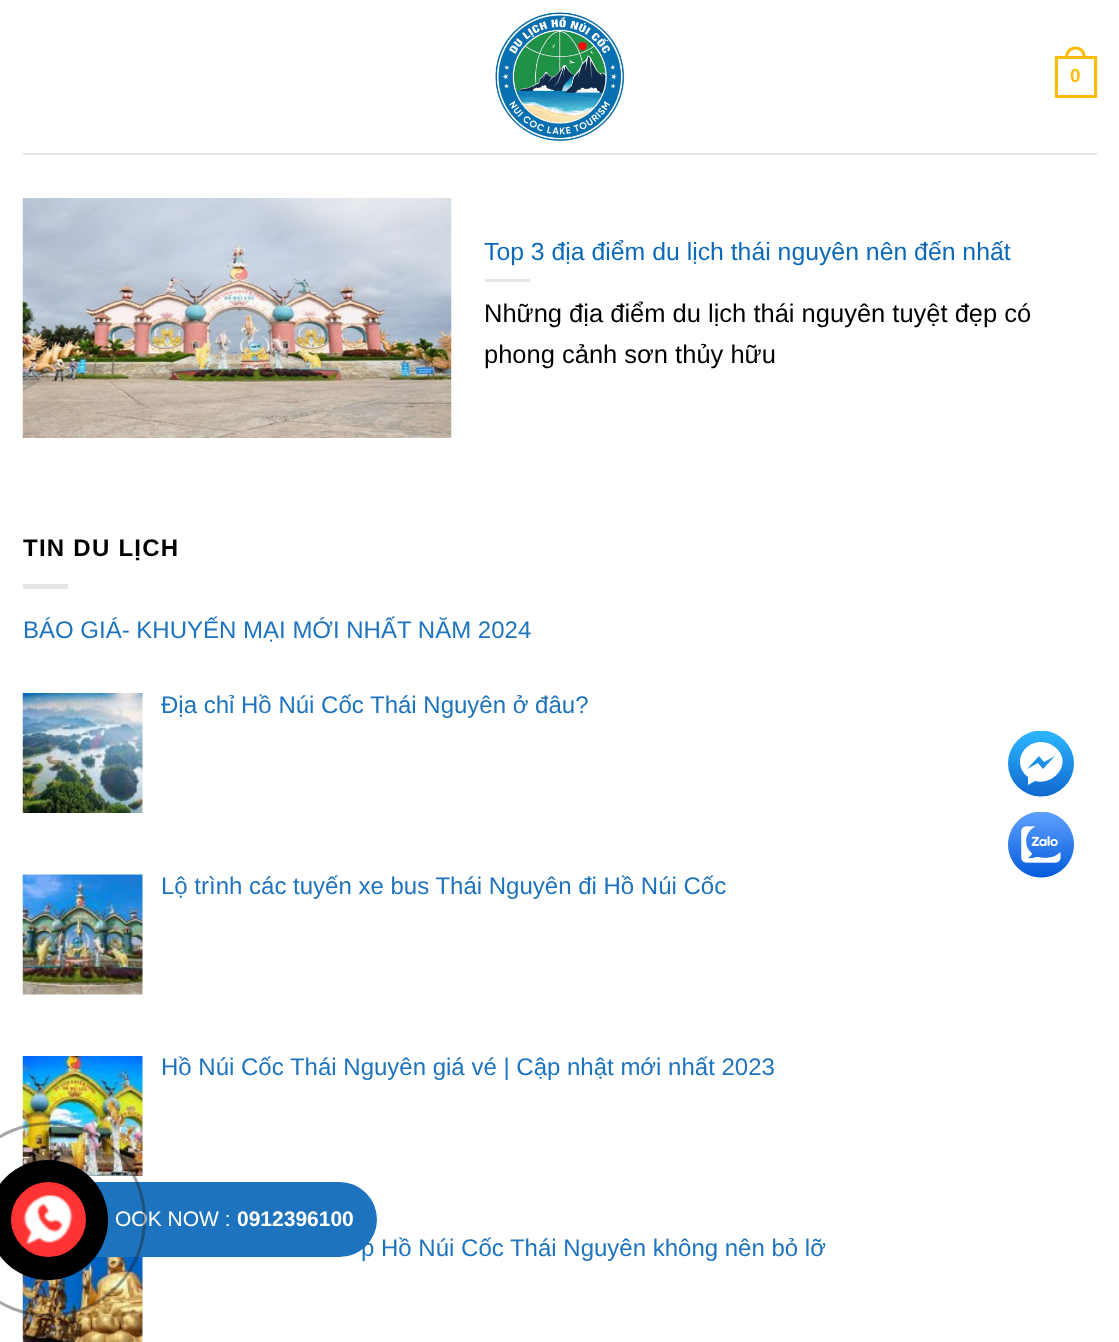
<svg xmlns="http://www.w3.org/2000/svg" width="1119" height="1342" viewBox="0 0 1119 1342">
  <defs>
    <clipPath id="clip1"><rect x="1008" y="731" width="66" height="66"/></clipPath>
    <linearGradient id="g1" gradientUnits="userSpaceOnUse" x1="1040" y1="796" x2="1040" y2="731"><stop offset="0" stop-color="rgb(17,104,207)"/><stop offset="1" stop-color="rgb(44,183,255)"/></linearGradient>
  </defs>
  <rect width="100%" height="100%" fill="rgb(255,255,255)"/>
  <image x="495" y="12" width="130" height="129" href="pic1.png"/>
  <rect x="1056.5" y="57.5" width="39" height="39" fill="none" stroke="rgb(254,187,2)" stroke-width="3"/>
  <path d="M1075.5 46.5C1082.5 46.5 1086 52 1086 58.5H1065C1065 52 1068.5 46.5 1075.5 46.5ZM1075.5 49.5C1081 49.5 1083 54 1083 58.5H1068C1068 54 1070 49.5 1075.5 49.5Z" fill="rgb(254,187,2)" fill-rule="evenodd"/>
  <text x="1070" y="82" font-family="Liberation Sans" font-size="19" font-weight="bold" fill="rgb(254,187,2)">0</text>
  <rect x="23" y="153" width="1074" height="2" fill="rgb(230,230,230)"/>
  <image x="22" y="198" width="430" height="240" href="pic2.png"/>
  <text x="484" y="260" font-family="Liberation Sans" font-size="24.8" fill="rgb(11,105,186)">Top 3 địa điểm du lịch thái nguyên nên đến nhất</text>
  <rect x="485" y="279" width="45" height="3" fill="rgb(230,230,230)"/>
  <g font-family="Liberation Sans" font-size="25.5" fill="rgb(0,0,0)">
    <text>
      <tspan x="484" y="322">Những địa điểm du lịch thái nguyên tuyệt đẹp có</tspan>
      <tspan x="484" y="363">phong cảnh sơn thủy hữu</tspan>
    </text>
  </g>
  <text x="23" y="556" font-family="Liberation Sans" font-size="24" font-weight="bold" letter-spacing="1.25" fill="rgb(0,0,0)">TIN DU LỊCH</text>
  <rect x="23" y="584" width="45" height="5" fill="rgb(230,230,230)"/>
  <text x="23" y="638" font-family="Liberation Sans" font-size="24" fill="rgb(30,115,190)">BÁO GIÁ- KHUYẾN MẠI MỚI NHẤT NĂM 2024</text>
  <image x="22" y="693" width="121" height="120" href="pic3.png"/>
  <text x="161" y="713" font-family="Liberation Sans" font-size="24" fill="rgb(30,115,190)">Địa chỉ Hồ Núi Cốc Thái Nguyên ở đâu?</text>
  <image x="22" y="874" width="121" height="121" href="pic4.png"/>
  <text x="161" y="894" font-family="Liberation Sans" font-size="24" fill="rgb(30,115,190)">Lộ trình các tuyến xe bus Thái Nguyên đi Hồ Núi Cốc</text>
  <image x="22" y="1056" width="121" height="120" href="pic5.png"/>
  <g font-family="Liberation Sans" font-size="24" fill="rgb(30,115,190)">
    <text x="161" y="1075">Hồ Núi Cốc Thái Nguyên giá vé | Cập nhật mới nhất 2023</text>
    <text x="361" y="1256">p Hồ Núi Cốc Thái Nguyên không nên bỏ lỡ</text>
  </g>
  <image x="22" y="1257" width="121" height="85" href="pic6.png"/>
  <g clip-path="url(#clip1)">
    <circle cx="1041" cy="763.5" r="33" fill="url(#g1)"/>
  </g>
  <path d="M1041 742C1022 742 1012 765 1028 777V785L1035 781C1054 786 1073 763 1056 748C1052 744 1047 742 1041 742ZM1043 769L1038 763L1027 769L1039 756L1044 762L1055 756Z" fill="rgb(255,255,255)" fill-rule="evenodd"/>
  <image x="1008" y="812" width="66" height="66" href="pic7.png"/>
  <rect x="11" y="1182" width="366" height="75" rx="37.5" fill="rgb(30,115,190)"/>
  <text x="115" y="1226" font-family="Liberation Sans" font-size="21" fill="rgb(255,255,255)">OOK NOW :</text>
  <circle cx="48.5" cy="1219.5" r="96" fill="none" stroke="rgba(30,30,30,0.4)" stroke-width="3"/>
  <circle cx="48" cy="1220" r="60" fill="rgb(0,0,0)"/>
  <circle cx="48.5" cy="1219.5" r="37.5" fill="rgb(255,51,51)"/>
  <image x="23" y="1195" width="50" height="49" href="pic8.png"/>
  <text x="237" y="1226" font-family="Liberation Sans" font-size="21" font-weight="bold" fill="rgb(255,255,255)">0912396100</text>
</svg>
